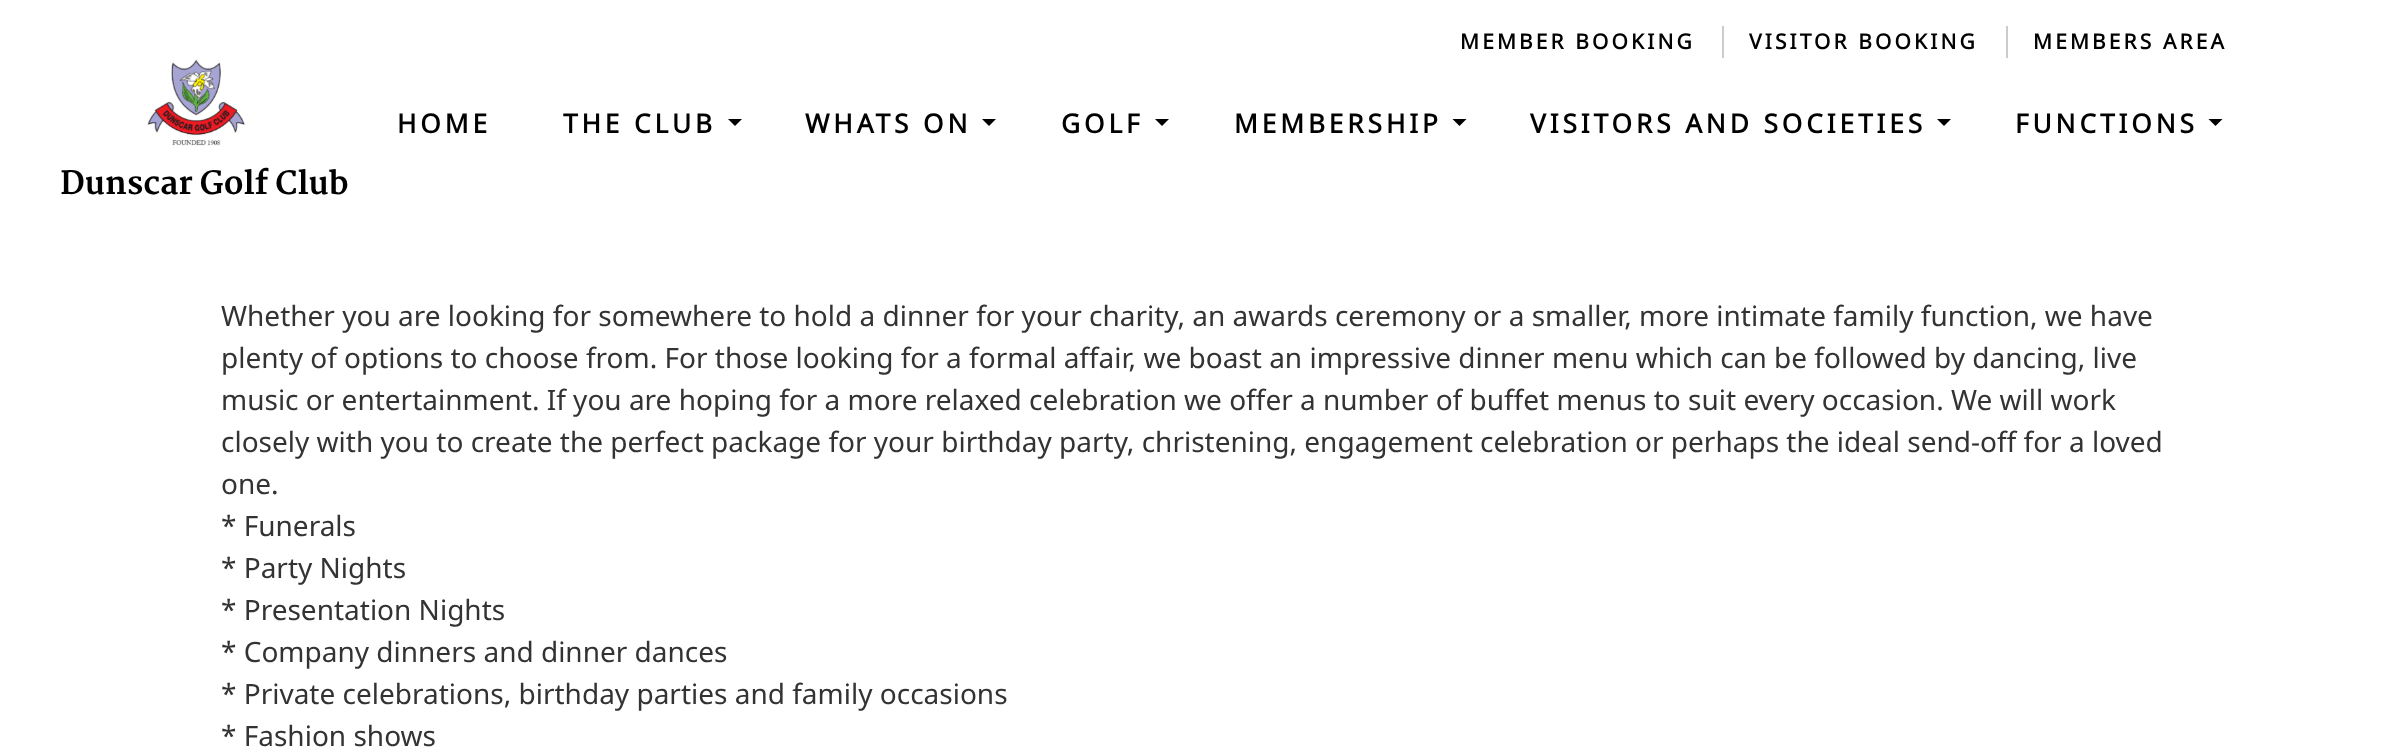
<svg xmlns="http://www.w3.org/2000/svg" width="2384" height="753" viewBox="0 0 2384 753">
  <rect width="100%" height="100%" fill="rgb(255,255,255)"/>
  <rect x="1722" y="26" width="2" height="32" fill="rgb(204,204,204)"/>
  <text x="1460" y="49" font-family="Noto Sans" font-size="21" font-weight="bold" letter-spacing="3.1" fill="rgb(0,0,0)">MEMBER BOOKING</text>
  <rect x="2006" y="26" width="2" height="32" fill="rgb(204,204,204)"/>
  <g font-family="Noto Sans" font-size="21" font-weight="bold" letter-spacing="3.1" fill="rgb(0,0,0)">
    <text x="1749" y="49">VISITOR BOOKING</text>
    <text x="2033" y="49">MEMBERS AREA</text>
  </g>
  <g font-family="Noto Sans" font-size="26.25" font-weight="bold" letter-spacing="3.9" fill="rgb(0,0,0)">
    <text x="397" y="133">HOME</text>
    <text x="563" y="133">THE CLUB</text>
  </g>
  <path d="M728 119H742L735 126Z" fill="rgb(0,0,0)"/>
  <text x="805" y="133" font-family="Noto Sans" font-size="26.25" font-weight="bold" letter-spacing="3.9" fill="rgb(0,0,0)">WHATS ON</text>
  <path d="M982 119H996L989 126Z" fill="rgb(0,0,0)"/>
  <text x="1061" y="133" font-family="Noto Sans" font-size="26.25" font-weight="bold" letter-spacing="3.9" fill="rgb(0,0,0)">GOLF</text>
  <path d="M1155 119H1169L1162 126Z" fill="rgb(0,0,0)"/>
  <text x="1234" y="133" font-family="Noto Sans" font-size="26.25" font-weight="bold" letter-spacing="3.9" fill="rgb(0,0,0)">MEMBERSHIP</text>
  <path d="M1452.5 119H1466.5L1459.5 126Z" fill="rgb(0,0,0)"/>
  <text x="1530" y="133" font-family="Noto Sans" font-size="26.25" font-weight="bold" letter-spacing="3.9" fill="rgb(0,0,0)">VISITORS AND SOCIETIES</text>
  <path d="M1937 119H1951L1944 126Z" fill="rgb(0,0,0)"/>
  <text x="2015" y="133" font-family="Noto Sans" font-size="26.25" font-weight="bold" letter-spacing="3.9" fill="rgb(0,0,0)">FUNCTIONS</text>
  <path d="M2208.5 119H2222.5L2215.5 126Z" fill="rgb(0,0,0)"/>
  <image x="147" y="59" width="98" height="87" href="pic1.png"/>
  <text x="60" y="194" font-family="Martel" font-size="31.5" font-weight="800" fill="rgb(0,0,0)">Dunscar Golf Club</text>
  <g font-family="Noto Sans" font-size="28" fill="rgb(51,51,51)">
    <text>
      <tspan x="221" y="326">Whether you are looking for somewhere to hold a dinner for your charity, an awards ceremony or a smaller, more intimate family function, we have</tspan>
      <tspan x="221" y="368">plenty of options to choose from. For those looking for a formal affair, we boast an impressive dinner menu which can be followed by dancing, live</tspan>
      <tspan x="221" y="410">music or entertainment. If you are hoping for a more relaxed celebration we offer a number of buffet menus to suit every occasion. We will work</tspan>
      <tspan x="221" y="452">closely with you to create the perfect package for your birthday party, christening, engagement celebration or perhaps the ideal send-off for a loved</tspan>
      <tspan x="221" y="494">one.</tspan>
      <tspan x="221" y="536">* Funerals</tspan>
      <tspan x="221" y="578">* Party Nights</tspan>
      <tspan x="221" y="620">* Presentation Nights</tspan>
      <tspan x="221" y="662">* Company dinners and dinner dances</tspan>
      <tspan x="221" y="704">* Private celebrations, birthday parties and family occasions</tspan>
      <tspan x="221" y="746">* Fashion shows</tspan>
    </text>
  </g>
</svg>
